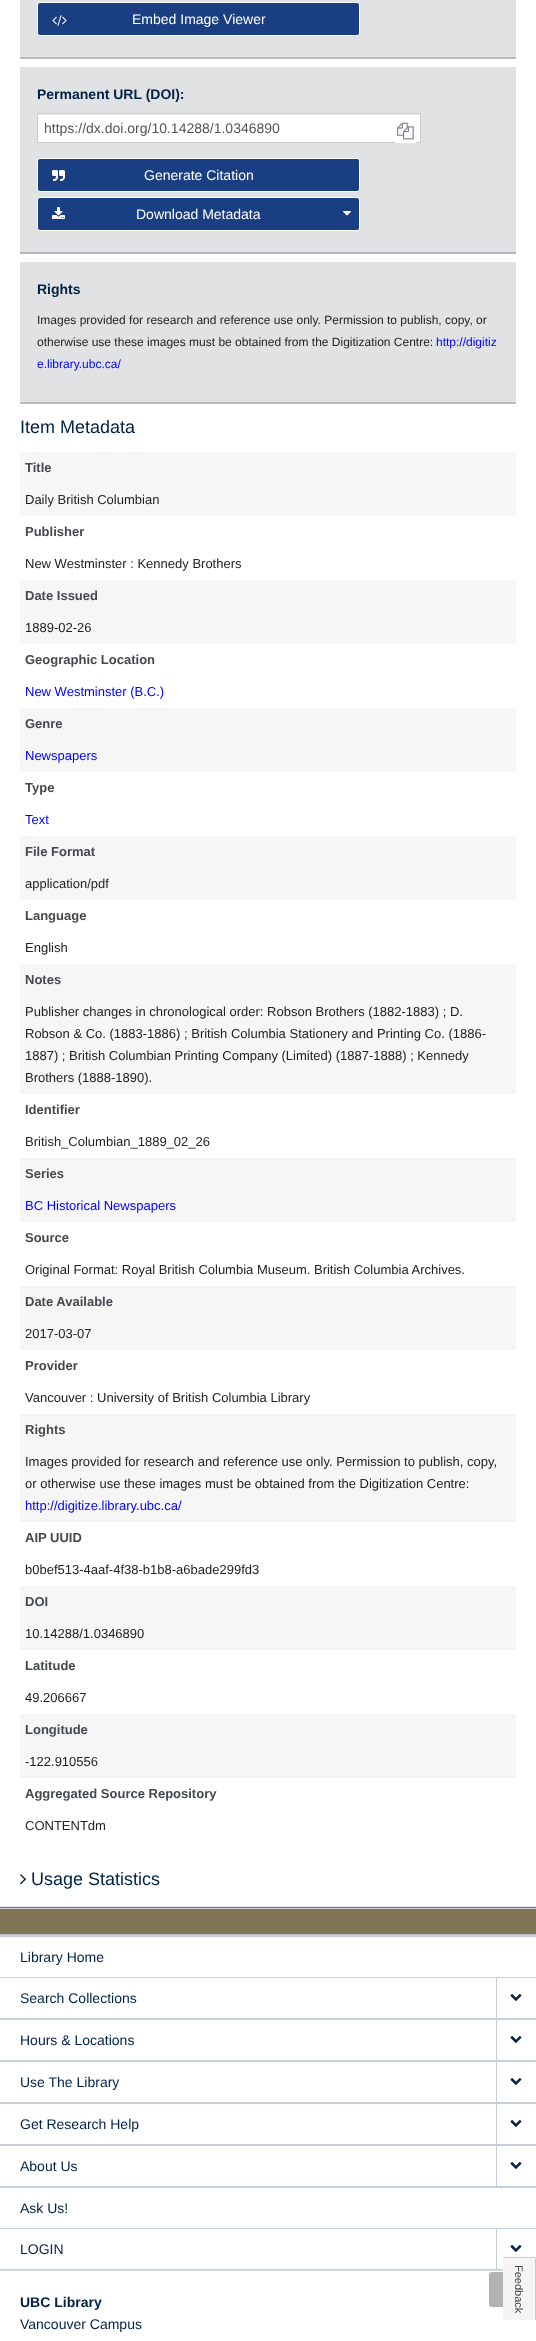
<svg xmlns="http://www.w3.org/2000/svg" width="536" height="2341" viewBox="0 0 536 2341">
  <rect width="100%" height="100%" fill="rgb(255,255,255)"/>
  <rect x="20" y="0" width="496" height="57" fill="rgb(225,226,228)"/>
  <rect x="20" y="57" width="496" height="2" fill="rgb(184,186,192)"/>
  <rect x="37.5" y="2.5" width="322" height="33" rx="2.5" fill="rgb(26,62,130)" stroke="rgb(255,255,255)"/>
  <image x="52" y="15" width="15" height="11" href="pic1.png"/>
  <text x="132" y="24" font-family="Liberation Sans" font-size="14" fill="rgb(255,255,255)">Embed Image Viewer</text>
  <rect x="20" y="67" width="496" height="185" fill="rgb(225,226,228)"/>
  <rect x="20" y="252" width="496" height="2" fill="rgb(184,186,192)"/>
  <text x="37" y="99" font-family="Liberation Sans" font-size="14" font-weight="bold" fill="rgb(0,33,69)">Permanent URL (DOI):</text>
  <rect x="38" y="115" width="382" height="27" fill="rgb(255,255,255)"/>
  <rect x="38" y="114" width="382" height="1" fill="rgb(236,236,236)"/>
  <rect x="37.5" y="113.5" width="383" height="29" fill="none" stroke="rgb(204,204,204)"/>
  <text x="44" y="133" font-family="Liberation Sans" font-size="14" fill="rgb(85,85,85)">https://dx.doi.org/10.14288/1.0346890</text>
  <rect x="395" y="142" width="21" height="1" fill="rgb(255,255,255)"/>
  <image x="397" y="122" width="17" height="18" href="pic2.png"/>
  <rect x="37.5" y="158.5" width="322" height="33" rx="2.5" fill="rgb(26,62,130)" stroke="rgb(255,255,255)"/>
  <image x="52" y="170" width="13" height="11" href="pic3.png"/>
  <text x="144" y="180" font-family="Liberation Sans" font-size="14" fill="rgb(255,255,255)">Generate Citation</text>
  <rect x="37.5" y="197.5" width="322" height="33" rx="2.5" fill="rgb(26,62,130)" stroke="rgb(255,255,255)"/>
  <image x="52" y="207" width="13" height="12" href="pic4.png"/>
  <text x="136" y="219" font-family="Liberation Sans" font-size="14" fill="rgb(255,255,255)">Download Metadata</text>
  <image x="343" y="211" width="8" height="5" href="pic5.png"/>
  <rect x="20" y="262" width="496" height="140" fill="rgb(225,226,228)"/>
  <rect x="20" y="402" width="496" height="2" fill="rgb(184,186,192)"/>
  <text x="37" y="294" font-family="Liberation Sans" font-size="14" font-weight="bold" fill="rgb(0,33,69)">Rights</text>
  <g font-family="Liberation Sans" font-size="12" fill="rgb(34,34,34)">
    <text>
      <tspan x="37" y="324">Images provided for research and reference use only. Permission to publish, copy, or</tspan>
      <tspan x="37" y="346">otherwise use these images must be obtained from the Digitization Centre:</tspan>
    </text>
  </g>
  <g font-family="Liberation Sans" font-size="12" fill="rgb(0,0,255)">
    <text x="436" y="346">http://digitiz</text>
    <text x="37" y="368">e.library.ubc.ca/</text>
  </g>
  <text x="20" y="433" font-family="Liberation Sans" font-size="18" fill="rgb(0,33,69)">Item Metadata</text>
  <rect x="20" y="452" width="496" height="64" fill="rgb(246,246,247)"/>
  <text x="25" y="472" font-family="Liberation Sans" font-size="13" font-weight="bold" fill="rgb(69,72,78)">Title</text>
  <text x="25" y="504" font-family="Liberation Sans" font-size="13" fill="rgb(34,34,34)">Daily British Columbian</text>
  <text x="25" y="536" font-family="Liberation Sans" font-size="13" font-weight="bold" fill="rgb(69,72,78)">Publisher</text>
  <text x="25" y="568" font-family="Liberation Sans" font-size="13" fill="rgb(34,34,34)">New Westminster : Kennedy Brothers</text>
  <rect x="20" y="580" width="496" height="64" fill="rgb(246,246,247)"/>
  <text x="25" y="600" font-family="Liberation Sans" font-size="13" font-weight="bold" fill="rgb(69,72,78)">Date Issued</text>
  <text x="25" y="632" font-family="Liberation Sans" font-size="13" fill="rgb(34,34,34)">1889-02-26</text>
  <text x="25" y="664" font-family="Liberation Sans" font-size="13" font-weight="bold" fill="rgb(69,72,78)">Geographic Location</text>
  <text x="25" y="696" font-family="Liberation Sans" font-size="13" fill="rgb(0,0,255)">New Westminster (B.C.)</text>
  <rect x="20" y="708" width="496" height="64" fill="rgb(246,246,247)"/>
  <text x="25" y="728" font-family="Liberation Sans" font-size="13" font-weight="bold" fill="rgb(69,72,78)">Genre</text>
  <text x="25" y="760" font-family="Liberation Sans" font-size="13" fill="rgb(0,0,255)">Newspapers</text>
  <text x="25" y="792" font-family="Liberation Sans" font-size="13" font-weight="bold" fill="rgb(69,72,78)">Type</text>
  <text x="25" y="824" font-family="Liberation Sans" font-size="13" fill="rgb(0,0,255)">Text</text>
  <rect x="20" y="836" width="496" height="64" fill="rgb(246,246,247)"/>
  <text x="25" y="856" font-family="Liberation Sans" font-size="13" font-weight="bold" fill="rgb(69,72,78)">File Format</text>
  <text x="25" y="888" font-family="Liberation Sans" font-size="13" fill="rgb(34,34,34)">application/pdf</text>
  <text x="25" y="920" font-family="Liberation Sans" font-size="13" font-weight="bold" fill="rgb(69,72,78)">Language</text>
  <text x="25" y="952" font-family="Liberation Sans" font-size="13" fill="rgb(34,34,34)">English</text>
  <rect x="20" y="964" width="496" height="130" fill="rgb(246,246,247)"/>
  <text x="25" y="984" font-family="Liberation Sans" font-size="13" font-weight="bold" fill="rgb(69,72,78)">Notes</text>
  <g font-family="Liberation Sans" font-size="13" fill="rgb(34,34,34)">
    <text>
      <tspan x="25" y="1016">Publisher changes in chronological order: Robson Brothers (1882-1883) ; D.</tspan>
      <tspan x="25" y="1038">Robson &amp; Co. (1883-1886) ; British Columbia Stationery and Printing Co. (1886-</tspan>
      <tspan x="25" y="1060">1887) ; British Columbian Printing Company (Limited) (1887-1888) ; Kennedy</tspan>
      <tspan x="25" y="1082">Brothers (1888-1890).</tspan>
    </text>
  </g>
  <text x="25" y="1114" font-family="Liberation Sans" font-size="13" font-weight="bold" fill="rgb(69,72,78)">Identifier</text>
  <text x="25" y="1146" font-family="Liberation Sans" font-size="13" fill="rgb(34,34,34)">British_Columbian_1889_02_26</text>
  <rect x="20" y="1158" width="496" height="64" fill="rgb(246,246,247)"/>
  <text x="25" y="1178" font-family="Liberation Sans" font-size="13" font-weight="bold" fill="rgb(69,72,78)">Series</text>
  <text x="25" y="1210" font-family="Liberation Sans" font-size="13" fill="rgb(0,0,255)">BC Historical Newspapers</text>
  <text x="25" y="1242" font-family="Liberation Sans" font-size="13" font-weight="bold" fill="rgb(69,72,78)">Source</text>
  <text x="25" y="1274" font-family="Liberation Sans" font-size="13" fill="rgb(34,34,34)">Original Format: Royal British Columbia Museum. British Columbia Archives.</text>
  <rect x="20" y="1286" width="496" height="64" fill="rgb(246,246,247)"/>
  <text x="25" y="1306" font-family="Liberation Sans" font-size="13" font-weight="bold" fill="rgb(69,72,78)">Date Available</text>
  <text x="25" y="1338" font-family="Liberation Sans" font-size="13" fill="rgb(34,34,34)">2017-03-07</text>
  <text x="25" y="1370" font-family="Liberation Sans" font-size="13" font-weight="bold" fill="rgb(69,72,78)">Provider</text>
  <text x="25" y="1402" font-family="Liberation Sans" font-size="13" fill="rgb(34,34,34)">Vancouver : University of British Columbia Library</text>
  <rect x="20" y="1414" width="496" height="108" fill="rgb(246,246,247)"/>
  <text x="25" y="1434" font-family="Liberation Sans" font-size="13" font-weight="bold" fill="rgb(69,72,78)">Rights</text>
  <g font-family="Liberation Sans" font-size="13" fill="rgb(34,34,34)">
    <text>
      <tspan x="25" y="1466">Images provided for research and reference use only. Permission to publish, copy,</tspan>
      <tspan x="25" y="1488">or otherwise use these images must be obtained from the Digitization Centre:</tspan>
    </text>
  </g>
  <text x="25" y="1510" font-family="Liberation Sans" font-size="13" fill="rgb(0,0,255)">http://digitize.library.ubc.ca/</text>
  <text x="25" y="1542" font-family="Liberation Sans" font-size="13" font-weight="bold" fill="rgb(69,72,78)">AIP UUID</text>
  <text x="25" y="1574" font-family="Liberation Sans" font-size="13" fill="rgb(34,34,34)">b0bef513-4aaf-4f38-b1b8-a6bade299fd3</text>
  <rect x="20" y="1586" width="496" height="64" fill="rgb(246,246,247)"/>
  <text x="25" y="1606" font-family="Liberation Sans" font-size="13" font-weight="bold" fill="rgb(69,72,78)">DOI</text>
  <text x="25" y="1638" font-family="Liberation Sans" font-size="13" fill="rgb(34,34,34)">10.14288/1.0346890</text>
  <text x="25" y="1670" font-family="Liberation Sans" font-size="13" font-weight="bold" fill="rgb(69,72,78)">Latitude</text>
  <text x="25" y="1702" font-family="Liberation Sans" font-size="13" fill="rgb(34,34,34)">49.206667</text>
  <rect x="20" y="1714" width="496" height="64" fill="rgb(246,246,247)"/>
  <text x="25" y="1734" font-family="Liberation Sans" font-size="13" font-weight="bold" fill="rgb(69,72,78)">Longitude</text>
  <text x="25" y="1766" font-family="Liberation Sans" font-size="13" fill="rgb(34,34,34)">-122.910556</text>
  <text x="25" y="1798" font-family="Liberation Sans" font-size="13" font-weight="bold" fill="rgb(69,72,78)">Aggregated Source Repository</text>
  <text x="25" y="1830" font-family="Liberation Sans" font-size="13" fill="rgb(34,34,34)">CONTENTdm</text>
  <image x="20" y="1874" width="6" height="11" href="pic6.png"/>
  <text x="31" y="1885" font-family="Liberation Sans" font-size="18" fill="rgb(0,33,69)">Usage Statistics</text>
  <rect x="0" y="1907" width="536" height="27" fill="rgb(128,117,85)"/>
  <rect x="0" y="1934" width="536" height="1" fill="rgb(184,186,192)"/>
  <rect x="0" y="1906" width="536" height="1" fill="rgb(233,233,235)"/>
  <rect x="0" y="1908" width="536" height="1" fill="rgb(211,213,216)"/>
  <rect x="0" y="1935" width="536" height="2" fill="rgb(195,208,219)"/>
  <rect x="0" y="1977" width="536" height="1" fill="rgb(195,208,219)"/>
  <text x="20" y="1962" font-family="Liberation Sans" font-size="14" fill="rgb(0,33,69)">Library Home</text>
  <rect x="0" y="2019" width="536" height="1" fill="rgb(195,208,219)"/>
  <rect x="0" y="2018" width="536" height="1" fill="rgb(195,208,219)"/>
  <text x="20" y="2003" font-family="Liberation Sans" font-size="14" fill="rgb(0,33,69)">Search Collections</text>
  <rect x="496" y="1978" width="1" height="41" fill="rgb(195,208,219)"/>
  <image x="510" y="1994" width="12" height="7" href="pic7.png"/>
  <rect x="0" y="2061" width="536" height="1" fill="rgb(195,208,219)"/>
  <rect x="0" y="2060" width="536" height="1" fill="rgb(195,208,219)"/>
  <text x="20" y="2045" font-family="Liberation Sans" font-size="14" fill="rgb(0,33,69)">Hours &amp; Locations</text>
  <rect x="496" y="2020" width="1" height="41" fill="rgb(195,208,219)"/>
  <image x="510" y="2036" width="12" height="7" href="pic7.png"/>
  <rect x="0" y="2103" width="536" height="1" fill="rgb(195,208,219)"/>
  <rect x="0" y="2102" width="536" height="1" fill="rgb(195,208,219)"/>
  <text x="20" y="2087" font-family="Liberation Sans" font-size="14" fill="rgb(0,33,69)">Use The Library</text>
  <rect x="496" y="2062" width="1" height="41" fill="rgb(195,208,219)"/>
  <image x="510" y="2078" width="12" height="7" href="pic7.png"/>
  <rect x="0" y="2145" width="536" height="1" fill="rgb(195,208,219)"/>
  <rect x="0" y="2144" width="536" height="1" fill="rgb(195,208,219)"/>
  <text x="20" y="2129" font-family="Liberation Sans" font-size="14" fill="rgb(0,33,69)">Get Research Help</text>
  <rect x="496" y="2104" width="1" height="41" fill="rgb(195,208,219)"/>
  <image x="510" y="2120" width="12" height="7" href="pic7.png"/>
  <rect x="0" y="2187" width="536" height="1" fill="rgb(195,208,219)"/>
  <rect x="0" y="2186" width="536" height="1" fill="rgb(195,208,219)"/>
  <text x="20" y="2171" font-family="Liberation Sans" font-size="14" fill="rgb(0,33,69)">About Us</text>
  <rect x="496" y="2146" width="1" height="41" fill="rgb(195,208,219)"/>
  <image x="510" y="2162" width="12" height="7" href="pic7.png"/>
  <rect x="0" y="2228" width="536" height="1" fill="rgb(195,208,219)"/>
  <text x="20" y="2213" font-family="Liberation Sans" font-size="14" fill="rgb(0,33,69)">Ask Us!</text>
  <rect x="0" y="2269" width="503" height="1" fill="rgb(195,208,219)"/>
  <text x="20" y="2254" font-family="Liberation Sans" font-size="14" fill="rgb(0,33,69)">LOGIN</text>
  <rect x="496" y="2229" width="1" height="41" fill="rgb(195,208,219)"/>
  <image x="510" y="2245" width="12" height="7" href="pic7.png"/>
  <rect x="0" y="2270" width="503" height="1" fill="rgb(215,224,231)"/>
  <text x="20" y="2307" font-family="Liberation Sans" font-size="14" font-weight="bold" fill="rgb(0,33,69)">UBC Library</text>
  <text x="20" y="2329" font-family="Liberation Sans" font-size="14" fill="rgb(0,33,69)">Vancouver Campus</text>
  <rect x="489" y="2272" width="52" height="35" rx="3" fill="rgba(0,0,0,0.3)" filter="blur(0.5px)"/>
  <path d="M536 2259V2320H503V2257H534C535 2257 536 2258 536 2259Z" fill="rgb(245,245,245)"/>
  <rect x="535" y="2258" width="1" height="62" fill="rgb(204,204,204)"/>
  <rect x="503" y="2257" width="32" height="1" fill="rgb(204,204,204)"/>
  <text x="515" y="2265" transform="rotate(90 515 2265)" font-family="Liberation Sans" font-size="11" fill="rgb(68,68,68)">Feedback</text>
</svg>
